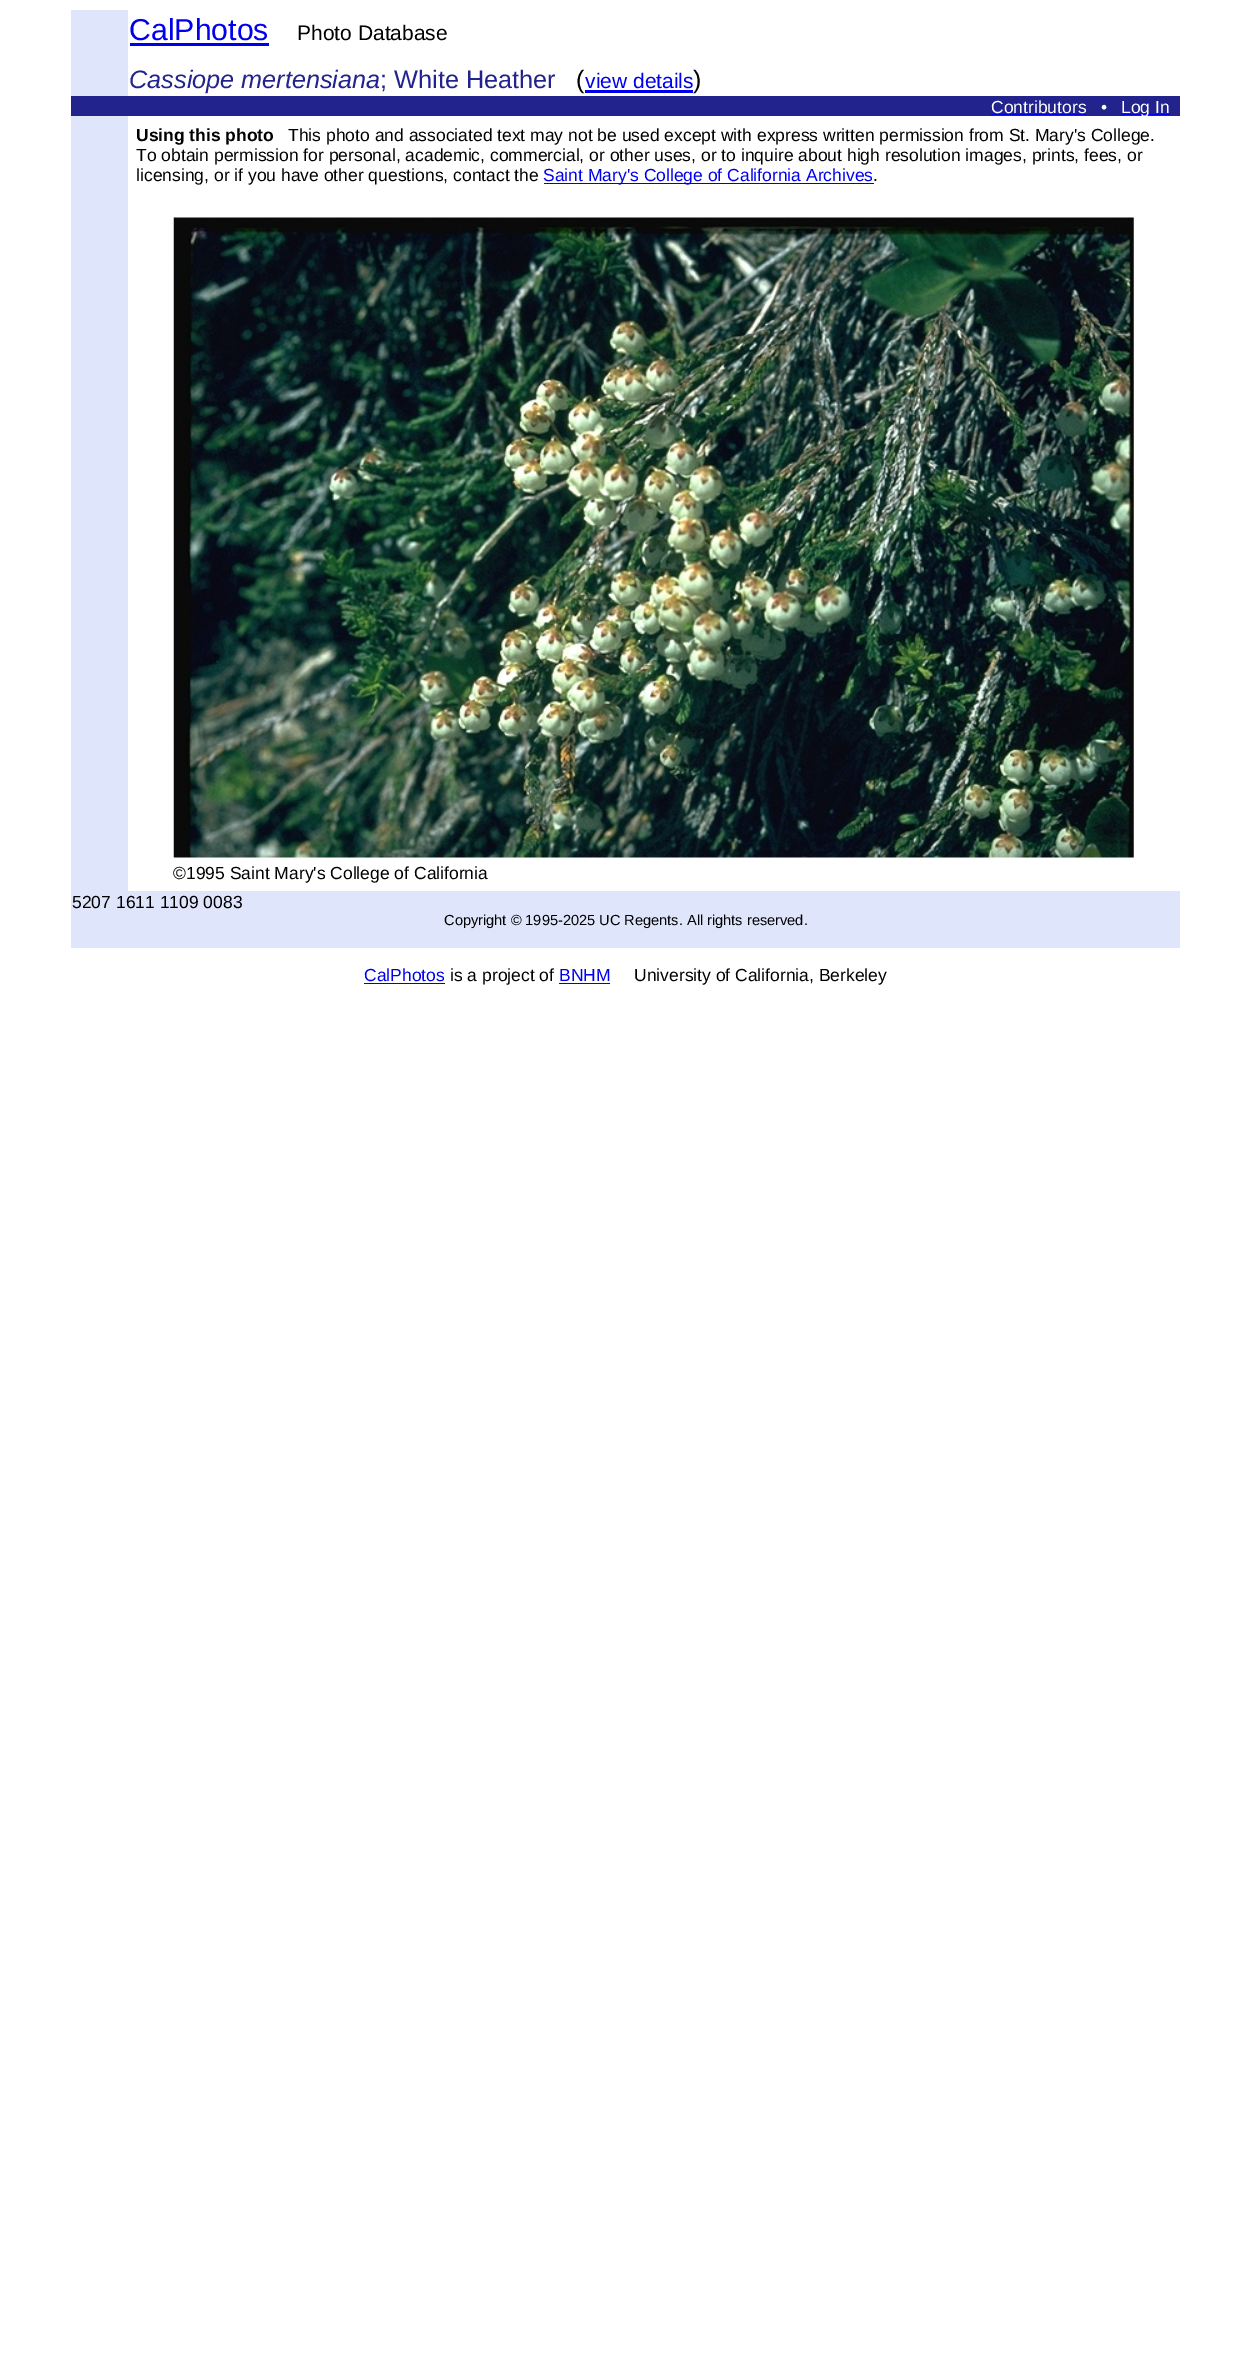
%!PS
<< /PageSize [1251 2379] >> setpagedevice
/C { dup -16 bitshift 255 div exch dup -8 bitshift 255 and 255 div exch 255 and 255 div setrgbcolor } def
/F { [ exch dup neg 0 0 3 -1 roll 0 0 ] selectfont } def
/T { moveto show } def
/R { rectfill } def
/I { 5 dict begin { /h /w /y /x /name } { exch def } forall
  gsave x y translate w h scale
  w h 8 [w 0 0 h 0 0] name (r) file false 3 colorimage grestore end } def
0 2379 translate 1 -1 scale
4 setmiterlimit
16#FFFFFF C
0 0 1251 2379 R
16#DFE5FA C
71 10 57 86 R
/LiberationSans-Regular 30.25 F
16#0000EE C
(CalPhotos) 129 40 T
130 43 139 3 R
/LiberationSans-Regular 21 F
16#000000 C
(Photo Database) 297 40 T
/LiberationSans-Italic 25.25 F
16#23238E C
(Cassiope mertensiana) 129 88 T
/LiberationSans-Regular 25.25 F
(; White Heather) 380 88 T
16#000000 C
(\() 576 88 T
16#0000EE C
585 90 108 3 R
/LiberationSans-Regular 21 F
(view details) 585 88 T
/LiberationSans-Regular 25.25 F
16#000000 C
(\)) 693 88 T
16#23238E C
71 96 1109 20 R
/LiberationSans-Regular 17.5 F
16#FFFFFF C
(Contributors) 991 113 T
16#0000EE C
991 114 95 1 R
16#FFFFFF C
(•) 1101 113 T
16#0000EE C
1121 114 49 1 R
16#FFFFFF C
(Log In) 1121 113 T
16#DFE5FA C
71 116 57 775 R
/LiberationSans-Bold 17.5 F
16#000000 C
(Using this photo) 136 141 T
/LiberationSans-Regular 17.5 F
(This photo and associated text may not be used except with express written permission from St. Mary's College.) 288 141 T
(To obtain permission for personal, academic, commercial, or other uses, or to inquire about high resolution images, prints, fees, or) 136 161 T
(licensing, or if you have other questions, contact the) 136 181 T
16#0000EE C
544 183 330 1 R
(Saint Mary's College of California Archives) 543 181 T
16#000000 C
(.) 873 181 T
(1.rgb) 173 217 961 641 I
(©1995 Saint Mary's College of California) 173 879 T
16#DFE5FA C
71 891 1109 57 R
16#000000 C
(5207 1611 1109 0083) 72 908 T
/LiberationSans-Regular 14.6 F
(Copyright © 1995-2025 UC Regents. All rights reserved.) 444 925 T
/LiberationSans-Regular 17.5 F
16#0000EE C
(CalPhotos) 364 981 T
364 983 81 1 R
16#000000 C
(is a project of) 450 981 T
16#0000EE C
(BNHM) 559 981 T
559 983 51 1 R
16#000000 C
(University of California, Berkeley) 634 981 T
showpage
